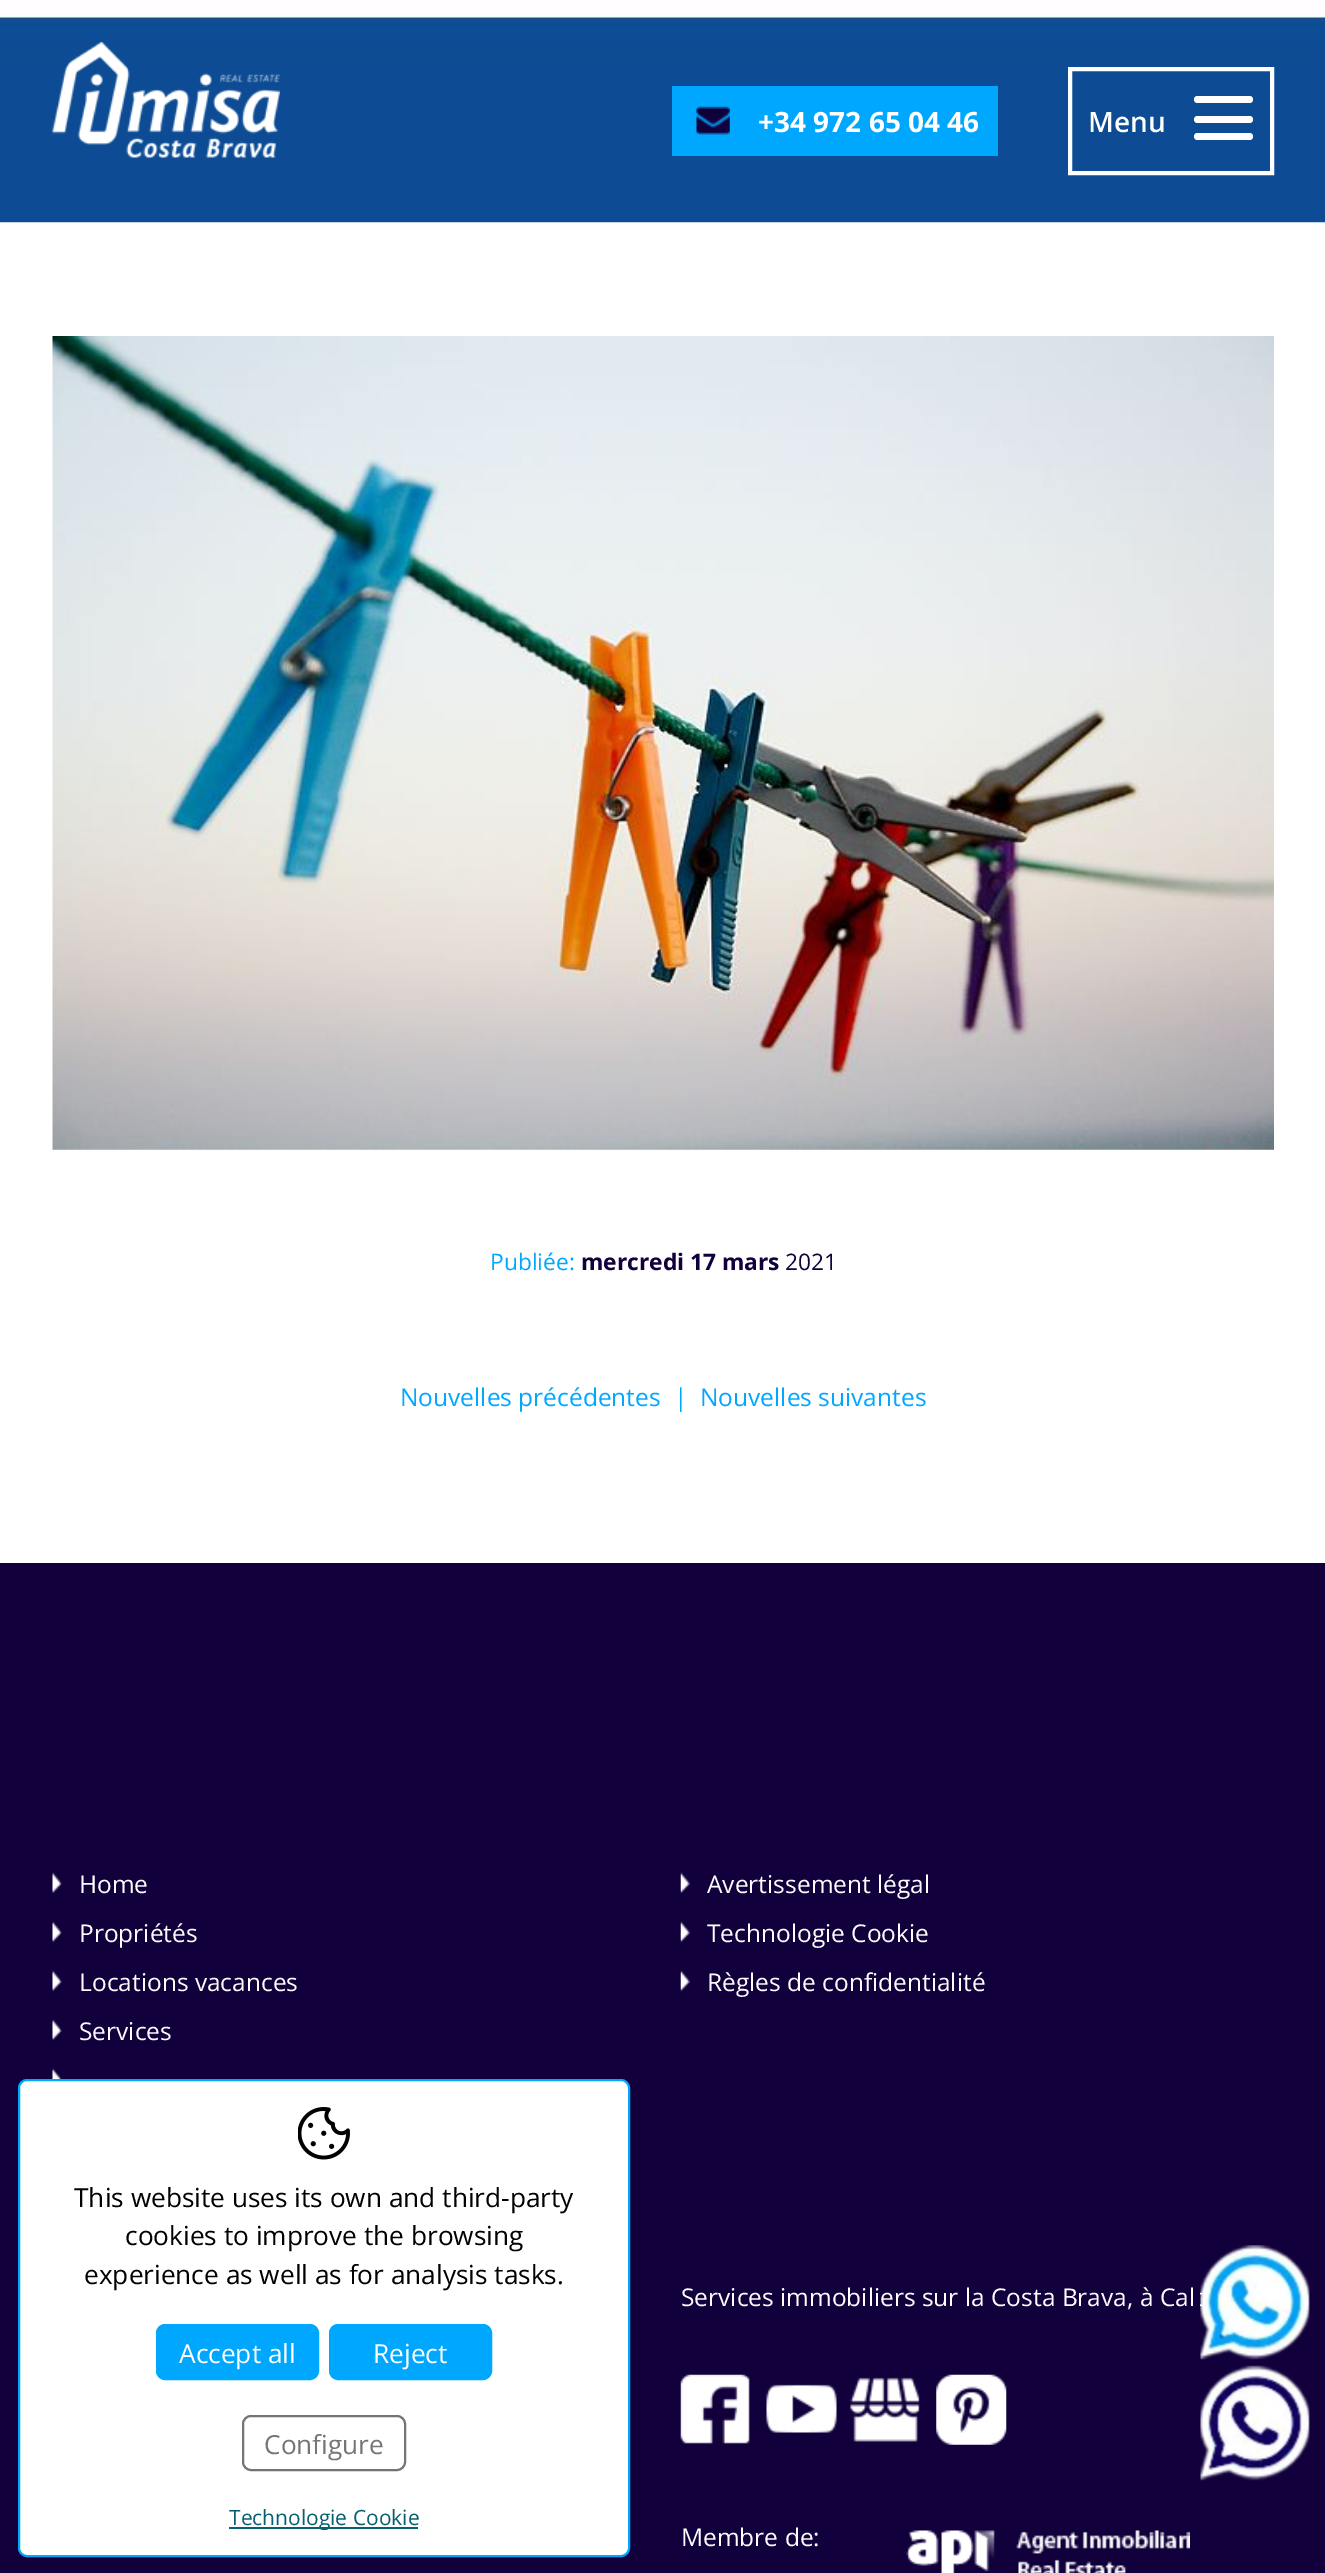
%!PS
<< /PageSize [1325 2573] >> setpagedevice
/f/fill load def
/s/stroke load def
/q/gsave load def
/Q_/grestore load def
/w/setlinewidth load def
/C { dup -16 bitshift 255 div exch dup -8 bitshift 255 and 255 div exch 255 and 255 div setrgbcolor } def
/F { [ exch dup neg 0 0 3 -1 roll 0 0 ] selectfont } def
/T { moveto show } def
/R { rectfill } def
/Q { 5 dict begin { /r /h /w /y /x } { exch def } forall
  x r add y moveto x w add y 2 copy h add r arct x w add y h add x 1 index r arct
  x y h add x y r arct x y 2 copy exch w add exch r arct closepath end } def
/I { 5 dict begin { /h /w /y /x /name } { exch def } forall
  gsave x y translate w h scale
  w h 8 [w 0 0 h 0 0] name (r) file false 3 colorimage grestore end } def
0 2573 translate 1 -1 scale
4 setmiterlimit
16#FFFFFF C
0 0 1325 2573 R
(1.rgb) 0 0 1325 223 I
(2.rgb) 52 42 228 116 I
16#00A7FF C
672 86 326 70 R
(3.rgb) 696 106 34 29 I
/OpenSans-Bold 28 F
16#FFFFFF C
(+34 972 65 04 46) 758 132 T
4 w
1070 69 202 104 rectstroke
/OpenSans-SemiBold 28 F
(Menu) 1088 132 T
1194 96 59 7 3.5 Q f
1194 116 59 7 3.5 Q f
1194 133 59 7 3.5 Q f
(4.rgb) 52 336 1222 814 I
/OpenSans-Regular 22.75 F
16#00A7FF C
(Publiée:) 490 1270 T
/OpenSans-Bold 22.75 F
16#11003B C
(mercredi 17 mars) 581 1270 T
/OpenSans-Regular 22.75 F
(2021) 785 1270 T
/OpenSans-Regular 24.5 F
16#00A7FF C
(Nouvelles précédentes) 400 1406 T
(|) 674 1406 T
(Nouvelles suivantes) 700 1406 T
16#11003B C
0 1563 1325 1010 R
(5.rgb) 52 1872 10 22 I
16#FFFFFF C
(Home) 79 1893 T
(5.rgb) 52 1921 10 22 I
(Propriétés) 79 1942 T
(5.rgb) 52 1970 10 22 I
(Locations vacances) 79 1991 T
(5.rgb) 52 2019 10 22 I
(Services) 79 2040 T
(6.rgb) 52 2068 10 11 I
(7.rgb) 680 1872 10 22 I
(Avertissement légal) 707 1893 T
(7.rgb) 680 1921 10 22 I
(Technologie Cookie) 707 1942 T
(7.rgb) 680 1970 10 22 I
(Règles de confidentialité) 707 1991 T
(Services immobiliers sur la Costa Brava, à Cal) 681 2306 T
(8.rgb) 680 2374 70 70 I
(9.rgb) 766 2384 71 49 I
(10.rgb) 850 2377 70 65 I
(11.rgb) 936 2374 71 71 I
(Membre de:) 681 2546 T
(12.rgb) 906 2530 284 43 I
19 2080 610 476 8 Q q f Q_
16#00A7FF C
2 w
s
(13.rgb) 298 2107 52 53 I
/OpenSans-Regular 26.25 F
16#000000 C
(This website uses its own and third-party) 74 2207 T
(cookies to improve the browsing) 125 2245 T
(experience as well as for analysis tasks.) 84 2284 T
16#00A7FF C
157 2325 161 54 8 Q q f Q_
s
16#FFFFFF C
(Accept all) 179 2363 T
16#00A7FF C
330 2325 161 54 8 Q q f Q_
s
16#FFFFFF C
(Reject) 373 2363 T
16#757575 C
243 2416 162 54 8 Q s
(Configure) 264 2454 T
16#075F72 C
229 2527 189 2 R
/OpenSans-Regular 21 F
(Technologie Cookie) 229 2525 T
(14.rgb) 1200 2245 110 115 I
(15.rgb) 1200 2365 110 116 I
showpage
